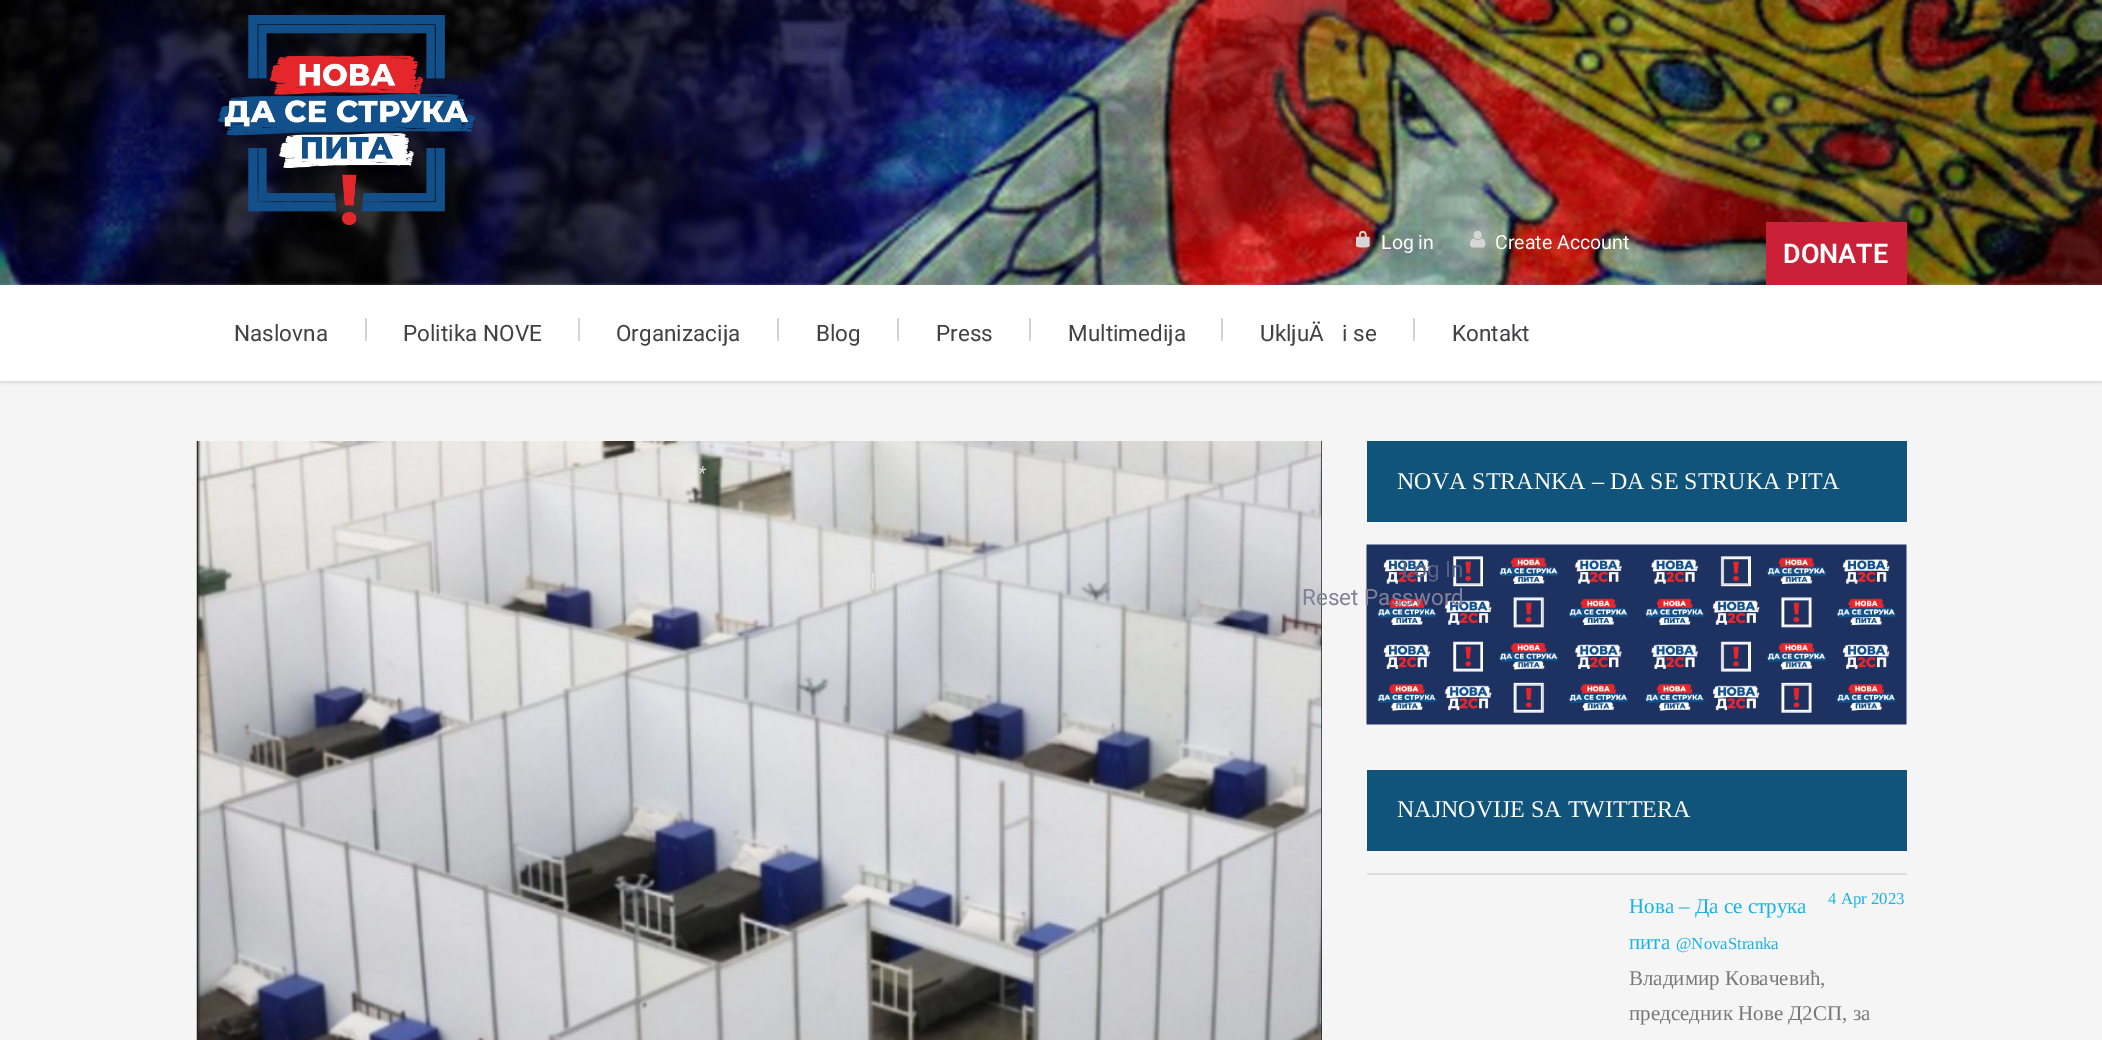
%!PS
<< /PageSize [2102 1040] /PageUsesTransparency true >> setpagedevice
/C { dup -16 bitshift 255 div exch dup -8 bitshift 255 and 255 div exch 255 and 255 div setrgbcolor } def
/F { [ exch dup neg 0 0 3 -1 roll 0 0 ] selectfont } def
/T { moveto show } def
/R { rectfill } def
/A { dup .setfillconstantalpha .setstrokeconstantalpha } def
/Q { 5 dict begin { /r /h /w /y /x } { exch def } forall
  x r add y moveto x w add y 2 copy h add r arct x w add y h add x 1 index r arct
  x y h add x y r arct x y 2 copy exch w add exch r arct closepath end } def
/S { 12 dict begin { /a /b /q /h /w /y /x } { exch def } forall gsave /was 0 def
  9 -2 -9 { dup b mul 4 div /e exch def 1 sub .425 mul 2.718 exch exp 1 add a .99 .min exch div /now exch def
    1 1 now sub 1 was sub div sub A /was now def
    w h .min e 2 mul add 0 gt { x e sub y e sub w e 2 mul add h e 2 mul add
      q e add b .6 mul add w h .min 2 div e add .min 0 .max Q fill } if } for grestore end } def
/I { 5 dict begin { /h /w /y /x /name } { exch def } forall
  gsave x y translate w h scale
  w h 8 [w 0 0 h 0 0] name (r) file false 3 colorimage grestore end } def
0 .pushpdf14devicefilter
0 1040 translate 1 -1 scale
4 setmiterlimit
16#F5F5F5 C
0 0 2102 1040 R
(1.rgb) 0 0 2102 285 I
(2.rgb) 217 15 259 210 I
(3.rgb) 1356 230 14 18 I
/Roboto-Regular 19.5 F
16#FFFFFF C
(Log in) 1381 249 T
(4.rgb) 1470 230 16 18 I
(Create Account) 1495 249 T
16#D8D8D8 C
0 287 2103 96 0 2 1 S
16#CA2139 C
1766 222 141 63 R
/Roboto-SemiBold 27 F
16#FFFFFF C
(DONATE) 1783 263 T
0 285 2102 96 R
/Roboto-Regular 22.5 F
16#424246 C
(Naslovna) 234 341 T
16#D5D5D6 C
365 318 2 23 R
16#424246 C
(Politika NOVE) 403 341 T
16#D5D5D6 C
578 318 2 23 R
16#424246 C
(Organizacija) 616 341 T
16#D5D5D6 C
777 318 2 23 R
16#424246 C
(Blog) 816 341 T
16#D5D5D6 C
897 318 2 23 R
16#424246 C
(Press) 936 341 T
16#D5D5D6 C
1029 318 2 23 R
16#424246 C
(Multimedija) 1068 341 T
16#D5D5D6 C
1221 318 2 23 R
16#424246 C
(UkljuÄ) 1260 341 T
(i se) 1342 341 T
16#D5D5D6 C
1413 318 2 23 R
16#424246 C
(Kontakt) 1452 341 T
16#272729 C
1321 441 1 599 R
(5.rgb) 196 441 1126 599 I
/Roboto-Italic 18 F
16#DBDBD9 C
(*) 698 479 T
(6.rgb) 1366 544 541 181 I
/Roboto-Regular 22.5 F
16#556186 C
(Log In) 1402 577 T
16#11547B C
1367 441 540 81 R
/LiberationSerif-Regular 24 F
16#FFFFFF C
(NOVA STRANKA – DA SE STRUKA PITA) 1397 489 T
16#11547B C
1367 770 540 81 R
16#FFFFFF C
(NAJNOVIJE SA TWITTERA) 1397 817 T
16#DDDDDD C
1367 873 540 2 R
/LiberationSerif-Regular 21 F
16#14B3E4 C
(Нова – Да се струка) 1629 913 T
/LiberationSerif-Regular 16.75 F
(4 Apr 2023) 1828 904 T
/LiberationSerif-Regular 21 F
(пита) 1629 949 T
/LiberationSerif-Regular 16.75 F
(@NovaStranka) 1676 949 T
/LiberationSerif-Regular 21 F
16#777777 C
(Владимир Ковачевић,) 1629 985 T
(председник Нове Д2СП, за) 1629 1020 T
/Roboto-Regular 22.5 F
16#E0E0E0 C
(I) 870 589 T
16#848099 C
(Reset Password) 1302 605 T
.poppdf14devicefilter showpage
